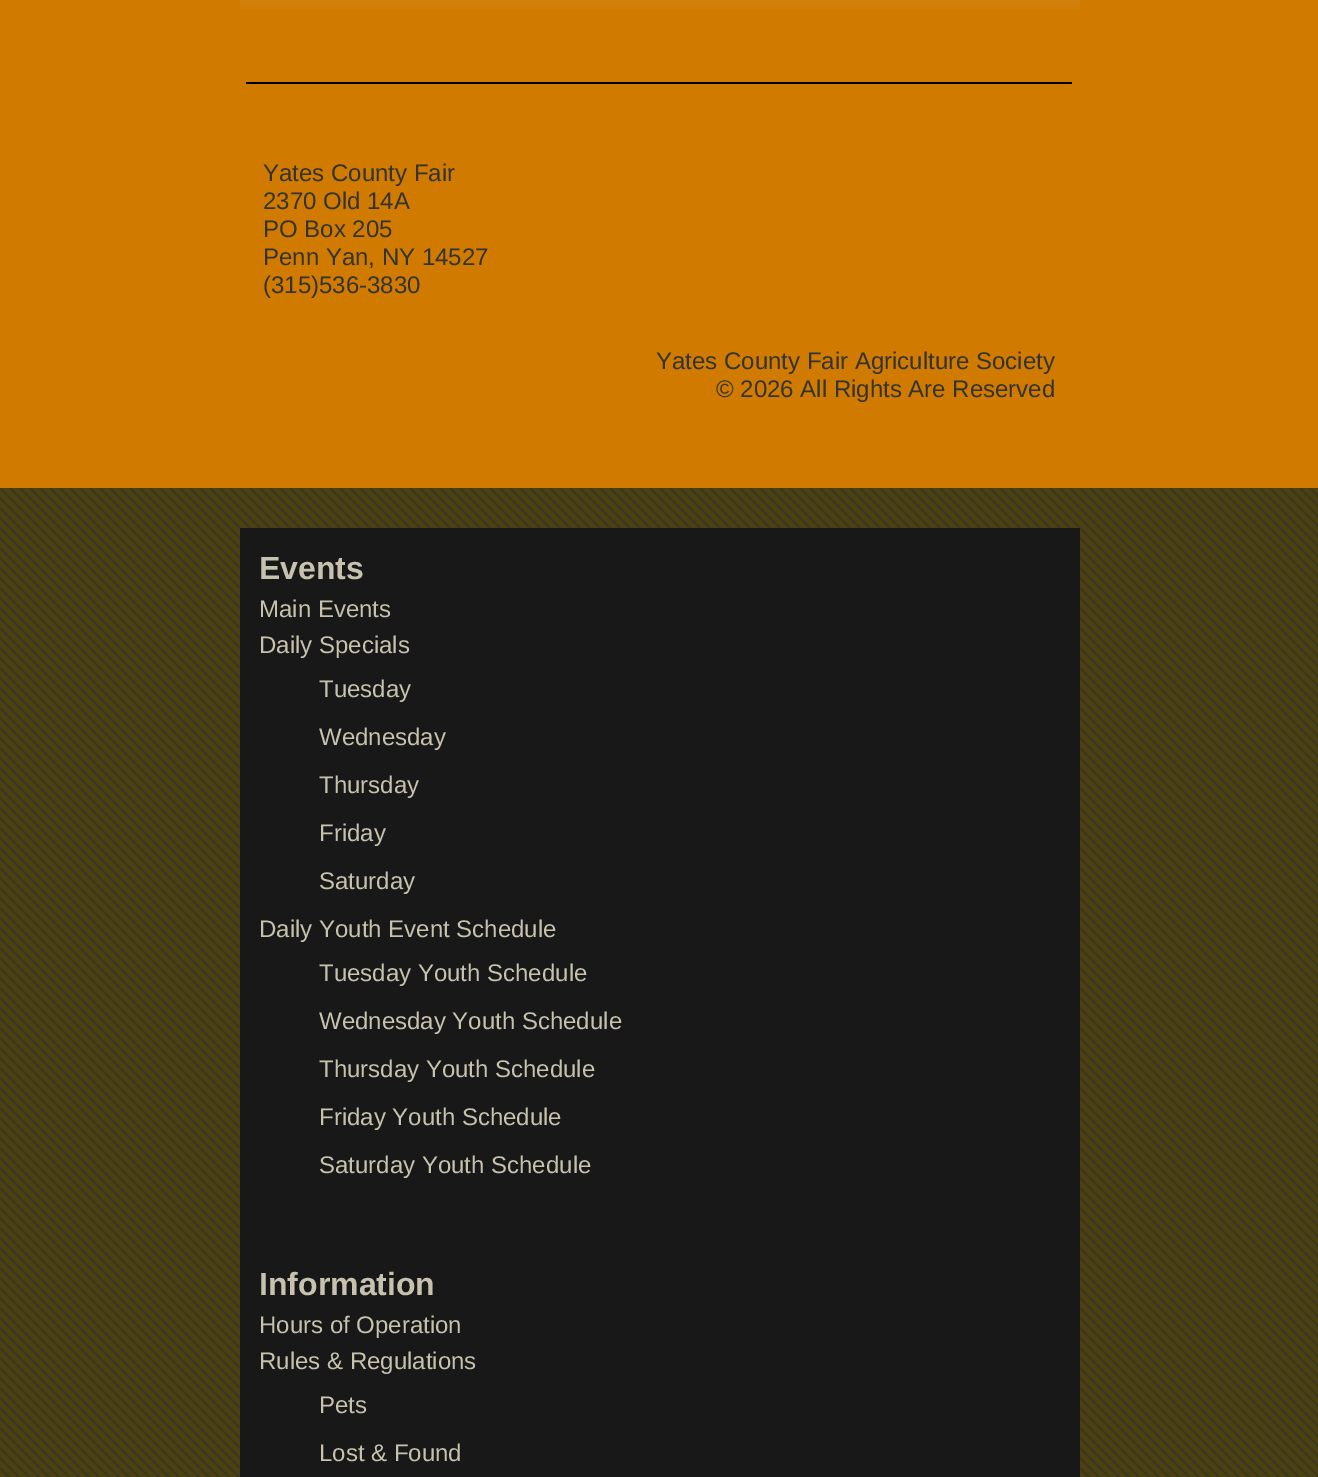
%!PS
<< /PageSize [1318 1477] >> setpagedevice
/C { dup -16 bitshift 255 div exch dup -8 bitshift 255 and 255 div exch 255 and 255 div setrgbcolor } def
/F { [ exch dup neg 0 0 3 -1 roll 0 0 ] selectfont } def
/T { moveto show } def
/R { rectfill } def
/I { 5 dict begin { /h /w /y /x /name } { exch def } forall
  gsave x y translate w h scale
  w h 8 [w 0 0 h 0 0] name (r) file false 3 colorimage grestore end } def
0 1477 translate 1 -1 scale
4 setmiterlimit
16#D07B00 C
0 0 1318 1477 R
(1.rgb) 240 0 840 9 I
16#000000 C
246 82 826 2 R
/LiberationSans-Regular 24 F
16#333333 C
(Yates County Fair) 263 181 T
(2370 Old 14A) 263 209 T
(PO Box 205) 263 237 T
(Penn Yan, NY 14527) 263 265 T
(\(315\)536-3830) 263 293 T
(Yates County Fair Agriculture Society) 656 369 T
(© 2026 All Rights Are Reserved) 716 397 T
(2.rgb) 0 488 1318 989 I
16#181818 C
240 528 840 949 R
/LiberationSans-Bold 32 F
16#C7C2AE C
(Events) 259 579 T
/LiberationSans-Regular 24 F
(Main Events) 259 617 T
(Daily Specials) 259 653 T
(Tuesday) 319 697 T
(Wednesday) 319 745 T
(Thursday) 319 793 T
(Friday) 319 841 T
(Saturday) 319 889 T
(Daily Youth Event Schedule) 259 937 T
(Tuesday Youth Schedule) 319 981 T
(Wednesday Youth Schedule) 319 1029 T
(Thursday Youth Schedule) 319 1077 T
(Friday Youth Schedule) 319 1125 T
(Saturday Youth Schedule) 319 1173 T
/LiberationSans-Bold 32 F
(Information) 259 1295 T
/LiberationSans-Regular 24 F
(Hours of Operation) 259 1333 T
(Rules & Regulations) 259 1369 T
(Pets) 319 1413 T
(Lost & Found) 319 1461 T
showpage
